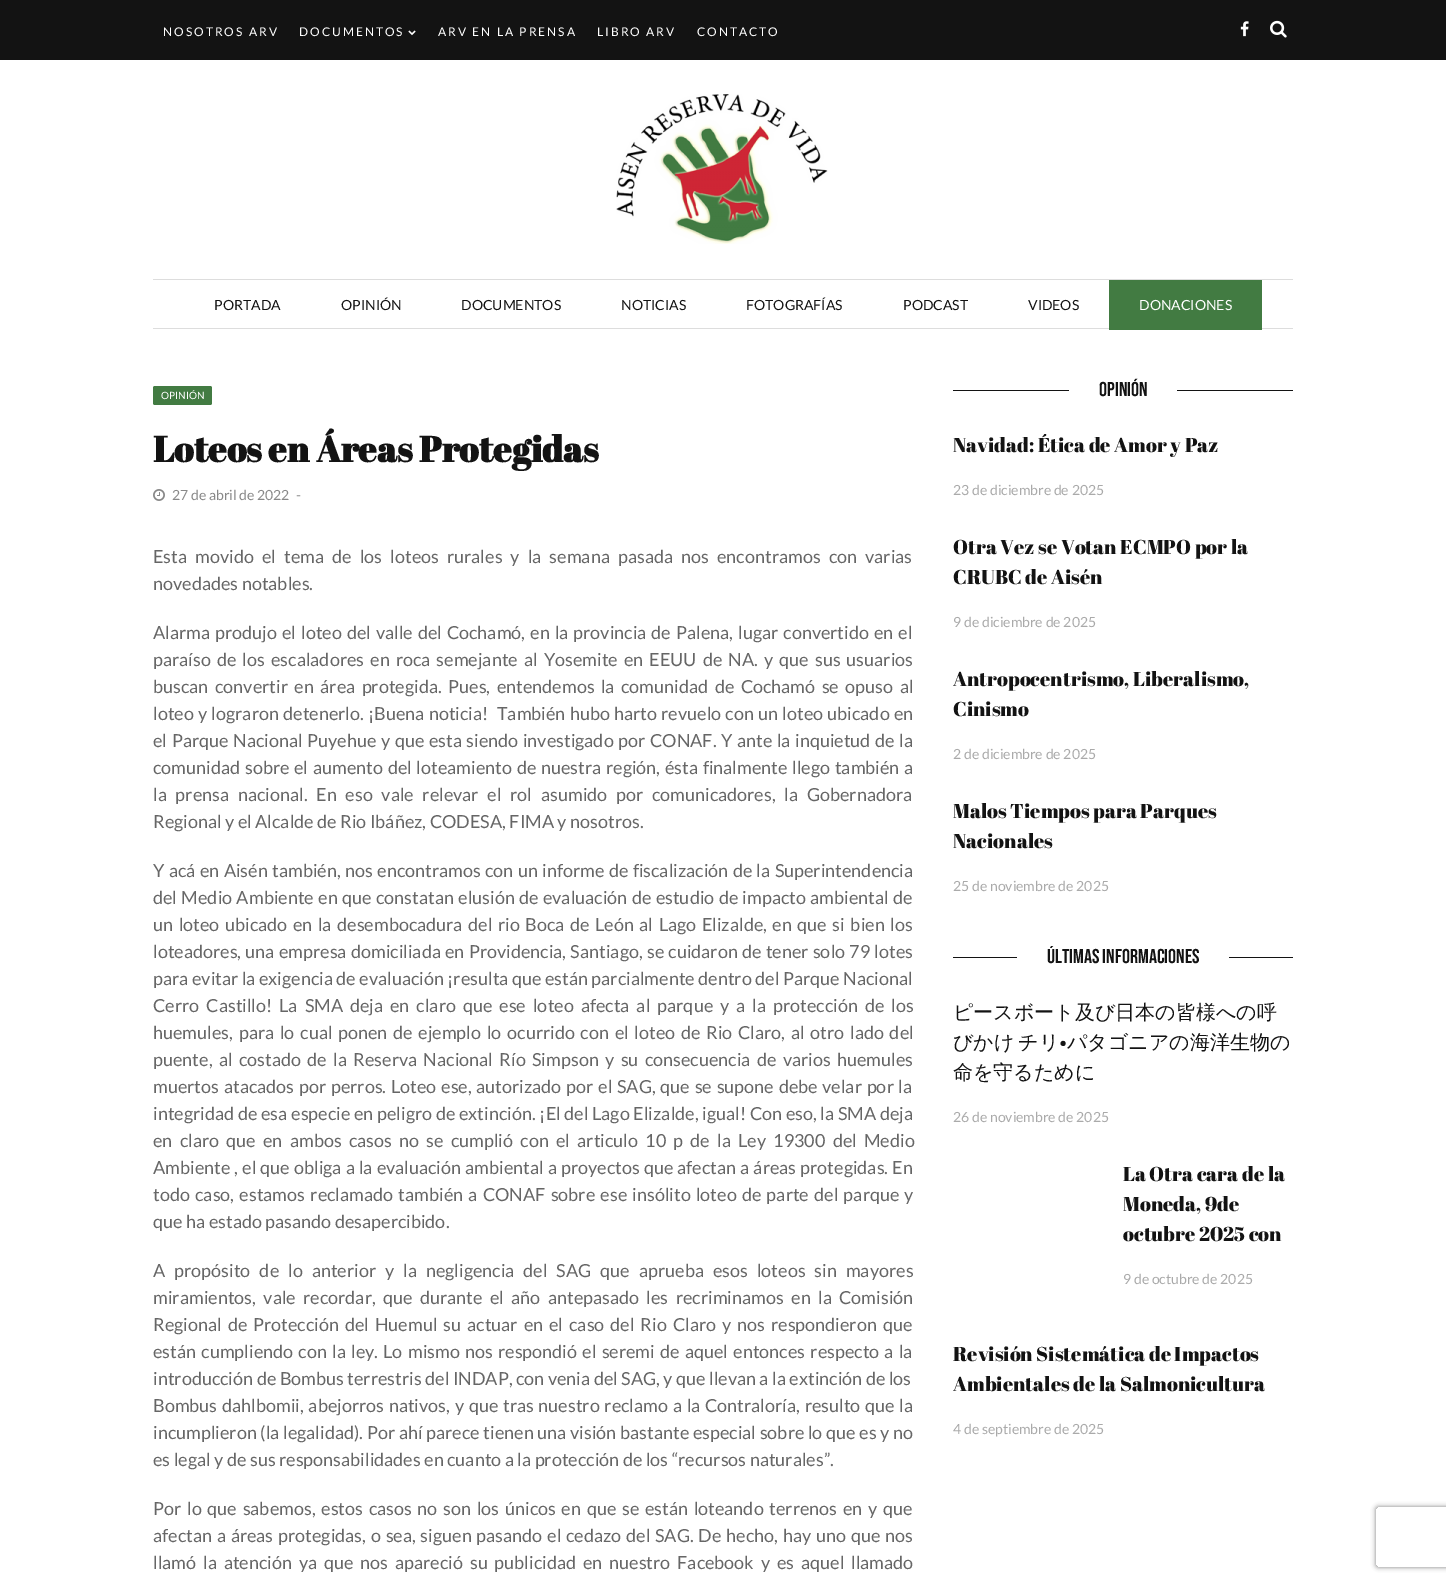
%!PS
<< /PageSize [1446 1581] /PageUsesTransparency true >> setpagedevice
/m/moveto load def
/l/rlineto load def
/c/rcurveto load def
/z/closepath load def
/f/fill load def
/q/gsave load def
/Q_/grestore load def
/C { dup -16 bitshift 255 div exch dup -8 bitshift 255 and 255 div exch 255 and 255 div setrgbcolor } def
/F { [ exch dup neg 0 0 3 -1 roll 0 0 ] selectfont } def
/T { moveto show } def
/R { rectfill } def
/A { dup .setfillconstantalpha .setstrokeconstantalpha } def
/Q { 5 dict begin { /r /h /w /y /x } { exch def } forall
  x r add y moveto x w add y 2 copy h add r arct x w add y h add x 1 index r arct
  x y h add x y r arct x y 2 copy exch w add exch r arct closepath end } def
/S { 12 dict begin { /a /b /q /h /w /y /x } { exch def } forall gsave /was 0 def
  9 -2 -9 { dup b mul 4 div /e exch def 1 sub .425 mul 2.718 exch exp 1 add a .99 .min exch div /now exch def
    1 1 now sub 1 was sub div sub A /was now def
    w h .min e 2 mul add 0 gt { x e sub y e sub w e 2 mul add h e 2 mul add
      q e add b .6 mul add w h .min 2 div e add .min 0 .max Q fill } if } for grestore end } def
/I { 5 dict begin { /h /w /y /x /name } { exch def } forall
  gsave x y translate w h scale
  w h 8 [w 0 0 h 0 0] name (r) file false 3 colorimage grestore end } def
0 .pushpdf14devicefilter
0 1581 translate 1 -1 scale
4 setmiterlimit
16#FFFFFF C
0 0 1446 1581 R
16#131313 C
0 0 1446 60 R
/Lato-Regular 12 F
16#FFFFFF C
163 36 m 2 0 (NOSOTROS ARV) ashow
299 36 m 2 0 (DOCUMENTOS) ashow
(1.rgb) 408 30 8 6 I
438 36 m 2 0 (ARV EN LA PRENSA) ashow
597 36 m 2 0 (LIBRO ARV) ashow
697 36 m 2 0 (CONTACTO) ashow
(2.rgb) 1240 21 9 16 I
(3.rgb) 1270 20 17 18 I
(4.rgb) 616 94 212 150 I
16#DDDDDD C
153 279 1140 1 R
153 328 1140 1 R
/Lato-Regular 14 F
16#131313 C
(PORTADA) 214 310 T
(OPINIÓN) 341 310 T
(DOCUMENTOS) 461 310 T
(NOTICIAS) 621 310 T
(FOTOGRAFÍAS) 746 310 T
(PODCAST) 903 310 T
(VIDEOS) 1028 310 T
16#427B42 C
1109 280 153 50 R
16#FFFFFF C
(DONACIONES) 1139 310 T
16#427B42 C
153 386 59 19 2 Q f
/Lato-Regular 10 F
16#FFFFFF C
(OPINIÓN) 161 399 T
/AbrilFatface-Bold 36 F
16#131313 C
(Loteos en Áreas Protegidas) 153 462 T
(5.rgb) 153 489 12 12 I
/Lato-Regular 14 F
16#888888 C
(27 de abril de 2022) 172 500 T
(-) 296 500 T
/Lato-Regular 18 F
16#666666 C
153 563 m 4.6 0 32 (Esta movido el tema de los loteos rurales y la semana pasada nos encontramos con varias) widthshow
(novedades notables.) 153 590 T
153 639 m 1.5 0 32 (Alarma produjo el loteo del valle del Cochamó, en la provincia de Palena, lugar convertido en el) widthshow
153 666 m 2.6 0 32 (paraíso de los escaladores en roca semejante al Yosemite en EEUU de NA. y que sus usuarios) widthshow
153 693 m 3 0 32 (buscan convertir en área protegida. Pues, entendemos la comunidad de Cochamó se opuso al) widthshow
153 720 m .75 0 32 (loteo y lograron detenerlo. ¡Buena noticia!  También hubo harto revuelo con un loteo ubicado en) widthshow
153 747 m 1.1 0 32 (el Parque Nacional Puyehue y que esta siendo investigado por CONAF. Y ante la inquietud de la) widthshow
153 774 m 1.25 0 32 (comunidad sobre el aumento del loteamiento de nuestra región, ésta finalmente llego también a) widthshow
153 801 m 5.25 0 32 (la prensa nacional. En eso vale relevar el rol asumido por comunicadores, la Gobernadora) widthshow
(Regional y el Alcalde de Rio Ibáñez, CODESA, FIMA y nosotros.) 153 828 T
153 877 m .9 0 32 (Y acá en Aisén también, nos encontramos con un informe de fiscalización de la Superintendencia) widthshow
153 904 m .9 0 32 (del Medio Ambiente en que constatan elusión de evaluación de estudio de impacto ambiental de) widthshow
153 931 m 2.1 0 32 (un loteo ubicado en la desembocadura del rio Boca de León al Lago Elizalde, en que si bien los) widthshow
153 958 m .75 0 32 (loteadores, una empresa domiciliada en Providencia, Santiago, se cuidaron de tener solo 79 lotes) widthshow
(para evitar la exigencia de evaluación ¡resulta que están parcialmente dentro del Parque Nacional) 153 985 T
153 1012 m 3.5 0 32 (Cerro Castillo! La SMA deja en claro que ese loteo afecta al parque y a la protección de los) widthshow
153 1039 m 2.25 0 32 (huemules, para lo cual ponen de ejemplo lo ocurrido con el loteo de Rio Claro, al otro lado del) widthshow
153 1066 m 2.9 0 32 (puente, al costado de la Reserva Nacional Río Simpson y su consecuencia de varios huemules) widthshow
153 1093 m 1.25 0 32 (muertos atacados por perros. Loteo ese, autorizado por el SAG, que se supone debe velar por la) widthshow
153 1120 m .25 0 32 (integridad de esa especie en peligro de extinción. ¡El del Lago Elizalde, igual! Con eso, la SMA deja) widthshow
153 1147 m 3.75 0 32 (en claro que en ambos casos no se cumplió con el articulo 10 p de la Ley 19300 del Medio) widthshow
153 1174 m .6 0 32 (Ambiente , el que obliga a la evaluación ambiental a proyectos que afectan a áreas protegidas. En) widthshow
153 1201 m 1.75 0 32 (todo caso, estamos reclamado también a CONAF sobre ese insólito loteo de parte del parque y) widthshow
(que ha estado pasando desapercibido.) 153 1228 T
153 1277 m 5.5 0 32 (A propósito de lo anterior y la negligencia del SAG que aprueba esos loteos sin mayores) widthshow
153 1304 m 3.9 0 32 (miramientos, vale recordar, que durante el año antepasado les recriminamos en la Comisión) widthshow
153 1331 m 2.5 0 32 (Regional de Protección del Huemul su actuar en el caso del Rio Claro y nos respondieron que) widthshow
153 1358 m 1.75 0 32 (están cumpliendo con la ley. Lo mismo nos respondió el seremi de aquel entonces respecto a la) widthshow
(introducción de Bombus terrestris del INDAP, con venia del SAG, y que llevan a la extinción de los) 153 1385 T
153 1412 m 1.25 0 32 (Bombus dahlbomii, abejorros nativos, y que tras nuestro reclamo a la Contraloría, resulto que la) widthshow
153 1439 m .2 0 32 (incumplieron \(la legalidad\). Por ahí parece tienen una visión bastante especial sobre lo que es y no) widthshow
(es legal y de sus responsabilidades en cuanto a la protección de los “recursos naturales”.) 153 1466 T
153 1515 m 2.25 0 32 (Por lo que sabemos, estos casos no son los únicos en que se están loteando terrenos en y que) widthshow
153 1542 m 1.3 0 32 (afectan a áreas protegidas, o sea, siguen pasando el cedazo del SAG. De hecho, hay uno que nos) widthshow
153 1569 m 3.4 0 32 (llamó la atención ya que nos apareció su publicidad en nuestro Facebook y es aquel llamado) widthshow
16#131313 C
953 390 340 1 R
16#FFFFFF C
1069 390 108 1 R
/BebasNeue-Regular 20 F
16#131313 C
(OPINIÓN) 1099 396 T
/AbrilFatface-Regular 20 F
(Navidad: Ética de Amor y Paz) 953 452 T
/Lato-Regular 14 F
16#AAAAAA C
(23 de diciembre de 2025) 953 495 T
/AbrilFatface-Regular 20 F
16#131313 C
(Otra Vez se Votan ECMPO por la) 953 554 T
(CRUBC de Aisén) 953 584 T
/Lato-Regular 14 F
16#AAAAAA C
(9 de diciembre de 2025) 953 627 T
/AbrilFatface-Regular 20 F
16#131313 C
(Antropocentrismo, Liberalismo,) 953 686 T
(Cinismo) 953 716 T
/Lato-Regular 14 F
16#AAAAAA C
(2 de diciembre de 2025) 953 759 T
/AbrilFatface-Regular 20 F
16#131313 C
(Malos Tiempos para Parques) 953 818 T
(Nacionales) 953 848 T
/Lato-Regular 14 F
16#AAAAAA C
(25 de noviembre de 2025) 953 891 T
16#131313 C
953 957 340 1 R
16#FFFFFF C
1017 957 212 1 R
q
953 946 340 495 rectclip
/BebasNeue-Regular 20 F
16#131313 C
(ÚLTIMAS INFORMACIONES) 1047 963 T
Q_
/WenQuanYiZenHei-Medium 20 F
16#131313 C
(ピースボート及び日本の皆様への呼) 953 1019 T
953 1049 m -2 0 32 (びかけ チリ) widthshow
/AbrilFatface-Regular 20 F
(•) 1059 1049 T
/WenQuanYiZenHei-Medium 20 F
(パタゴニアの海洋生物の) 1067 1049 T
(命を守るために) 953 1079 T
/Lato-Regular 14 F
16#AAAAAA C
(26 de noviembre de 2025) 953 1122 T
/AbrilFatface-Regular 20 F
16#131313 C
(La Otra cara de la) 1123 1181 T
(Moneda, 9de) 1123 1211 T
(octubre 2025 con) 1123 1241 T
/Lato-Regular 14 F
16#AAAAAA C
(9 de octubre de 2025) 1123 1284 T
/AbrilFatface-Regular 20 F
16#131313 C
(Revisión Sistemática de Impactos) 953 1361 T
(Ambientales de la Salmonicultura) 953 1391 T
/Lato-Regular 14 F
16#AAAAAA C
(4 de septiembre de 2025) 953 1434 T
q
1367 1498 m 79 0 l 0 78 l -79 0 l z 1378 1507 m 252 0 l 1 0 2 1 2 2 c 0 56 l 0 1 -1 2 -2 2 c -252 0 l -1 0 -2 -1 -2 -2 c 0 -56 l 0 -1 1 -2 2 -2 c z eoclip newpath
16#808080 C
1376 1507 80 60 2 2.5 1 S
Q_
.poppdf14devicefilter showpage
